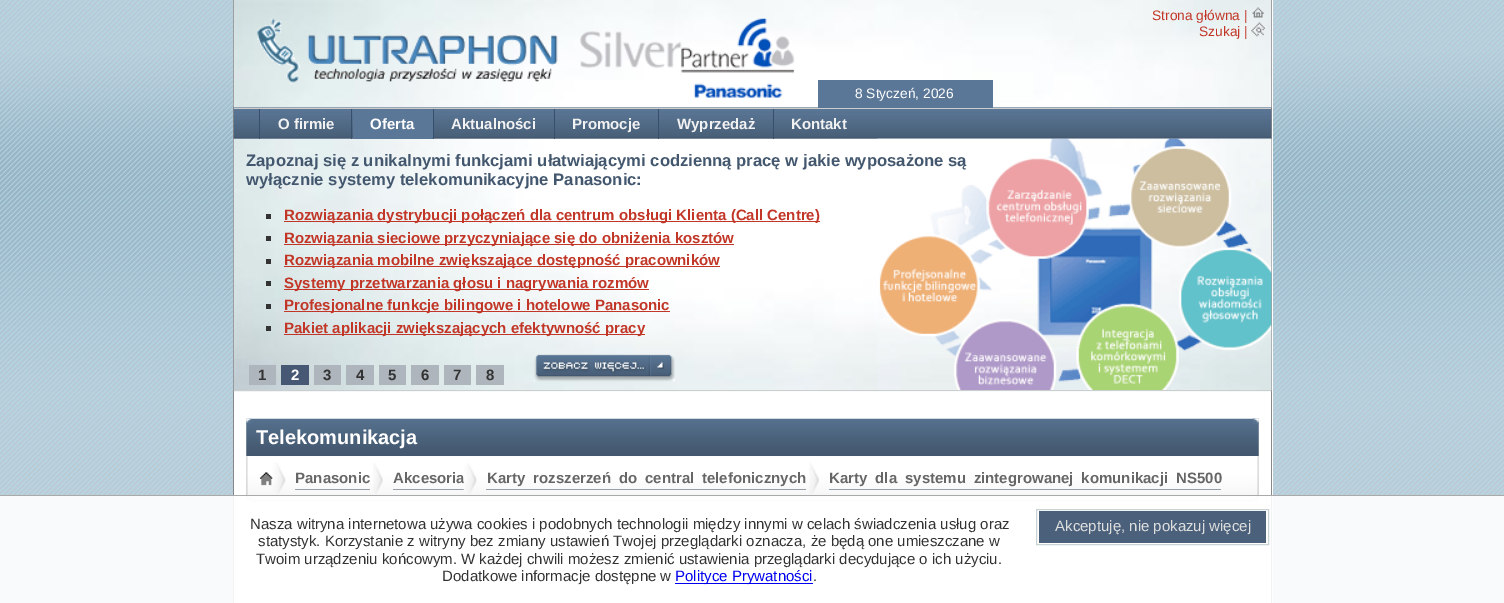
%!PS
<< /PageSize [1504 603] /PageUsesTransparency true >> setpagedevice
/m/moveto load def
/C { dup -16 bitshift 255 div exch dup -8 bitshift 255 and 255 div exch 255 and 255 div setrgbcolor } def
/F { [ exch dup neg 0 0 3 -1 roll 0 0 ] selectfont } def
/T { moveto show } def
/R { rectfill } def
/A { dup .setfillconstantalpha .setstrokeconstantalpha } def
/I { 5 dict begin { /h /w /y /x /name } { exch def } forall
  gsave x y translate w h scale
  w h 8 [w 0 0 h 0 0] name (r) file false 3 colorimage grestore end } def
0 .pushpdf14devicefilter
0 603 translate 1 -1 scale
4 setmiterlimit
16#FFFFFF C
0 0 1504 603 R
(1.rgb) 0 0 1504 603 I
(2.rgb) 0 0 1504 603 I
234 0 1039 603 R
16#898788 C
1271 0 1 603 R
233 0 1 603 R
(3.rgb) 233 0 1039 108 I
(4.rgb) 257 18 301 66 I
(5.rgb) 580 18 215 80 I
(8.rgb) 233 107 1039 32 I
16#5B7797 C
818 80 175 28 R
/LiberationSans-Regular 13.75 F
16#FFFFFF C
(8 Styczeń, 2026) 855 98 T
16#C13626 C
(Strona główna |) 1152 20 T
(6.rgb) 1252 7 12 11 I
(Szukaj |) 1199 36 T
(7.rgb) 1251 22 14 15 I
16#CDCCCC C
234 108 1037 1 R
(9.rgb) 233 138 1039 254 I
16#364F6A C
259 109 1 30 R
/LiberationSans-Bold 15 F
16#F2F2F2 C
(O firmie) 278 129 T
16#364F6A C
351 109 1 30 R
16#5B7797 C
353 110 80 29 R
16#FFFFFF C
(Oferta) 370 129 T
16#364F6A C
433 109 1 30 R
16#F2F2F2 C
(Aktualności) 451 129 T
16#364F6A C
554 109 1 30 R
16#F2F2F2 C
(Promocje) 572 129 T
16#364F6A C
658 109 1 30 R
16#F2F2F2 C
(Wyprzedaż) 677 129 T
16#364F6A C
773 109 1 30 R
16#F2F2F2 C
(Kontakt) 791 129 T
16#CACECF C
234 390 1037 1 R
(11.rgb) 877 138 395 252 I
/LiberationSans-Bold 16.65 F
16#43576E C
(Zapoznaj się z unikalnymi funkcjami ułatwiającymi codzienną pracę w jakie wyposażone są) 246 166 T
(wyłącznie systemy telekomunikacyjne Panasonic:) 246 185 T
16#333333 C
266 214 5 5 R
16#C13626 C
284 221 536 1 R
/LiberationSans-Bold 15 F
(Rozwiązania dystrybucji połączeń dla centrum obsługi Klienta \(Call Centre\)) 284 220 T
16#333333 C
266 236 5 5 R
16#C13626 C
284 244 450 1 R
(Rozwiązania sieciowe przyczyniające się do obniżenia kosztów) 284 243 T
16#333333 C
266 259 5 5 R
16#C13626 C
284 266 436 1 R
(Rozwiązania mobilne zwiększające dostępność pracowników) 284 265 T
16#333333 C
266 281 5 5 R
16#C13626 C
284 289 365 1 R
(Systemy przetwarzania głosu i nagrywania rozmów) 284 288 T
16#333333 C
266 304 5 5 R
16#C13626 C
284 311 386 1 R
(Profesjonalne funkcje bilingowe i hotelowe Panasonic) 284 310 T
16#333333 C
266 326 5 5 R
16#C13626 C
284 334 361 1 R
(Pakiet aplikacji zwiększających efektywność pracy) 284 333 T
(10.rgb) 533 354 142 28 I
16#AEB5BC C
249 365 27 20 R
16#333333 C
(1) 258 380 T
16#475875 C
281 365 28 20 R
16#FFFFFF C
(2) 291 380 T
16#AEB5BC C
314 365 27 20 R
16#333333 C
(3) 323 380 T
16#AEB5BC C
346 365 28 20 R
16#333333 C
(4) 356 380 T
16#AEB5BC C
379 365 27 20 R
16#333333 C
(5) 388 380 T
16#AEB5BC C
411 365 28 20 R
16#333333 C
(6) 421 380 T
16#AEB5BC C
444 365 27 20 R
16#333333 C
(7) 453 380 T
16#AEB5BC C
476 365 28 20 R
16#333333 C
(8) 486 380 T
(12.rgb) 246 418 1013 39 I
(13.rgb) 246 418 6 6 I
(14.rgb) 1252 418 7 6 I
/LiberationSans-Bold 20 F
16#FFFFFF C
(Telekomunikacja) 256 444 T
(15.rgb) 246 456 1013 46 I
(16.rgb) 246 456 8 46 I
(17.rgb) 259 472 14 14 I
(18.rgb) 272 462 14 32 I
16#95A0AA C
295 489 75 1 R
/LiberationSans-Bold 15 F
16#666666 C
(Panasonic) 295 483 T
(19.rgb) 373 462 10 32 I
16#95A0AA C
393 489 71 1 R
16#666666 C
(Akcesoria) 393 483 T
(20.rgb) 463 463 14 31 I
16#95A0AA C
486 489 320 1 R
16#666666 C
487 483 m 3.75 0 32 (Karty rozszerzeń do central telefonicznych) widthshow
(21.rgb) 809 462 10 32 I
16#95A0AA C
829 489 392 1 R
16#666666 C
829 483 m 3.75 0 32 (Karty dla systemu zintegrowanej komunikacji NS500) widthshow
(22.rgb) 1251 456 8 46 I
0.9 A
16#FFFFFF C
0 496 1504 107 R
1 A
16#AAAAAA C
0 495 1504 1 R
/LiberationSans-Regular 15 F
16#333333 C
(Nasza witryna internetowa używa cookies i podobnych technologii między innymi w celach świadczenia usług oraz) 250 529 T
(statystyk. Korzystanie z witryny bez zmiany ustawień Twojej przeglądarki oznacza, że będą one umieszczane w) 258 546 T
(Twoim urządzeniu końcowym. W każdej chwili możesz zmienić ustawienia przeglądarki decydujące o ich użyciu.) 256 564 T
(Dodatkowe informacje dostępne w) 442 581 T
16#0000EE C
675 583 138 1 R
(Polityce Prywatności) 675 581 T
16#333333 C
(.) 813 581 T
16#CAD3D4 C
1036.5 509.5 232 35 rectstroke
16#4B617B C
1039 511 227 32 R
16#DFDFDF C
(Akceptuję, nie pokazuj więcej) 1055 531 T
.poppdf14devicefilter showpage
